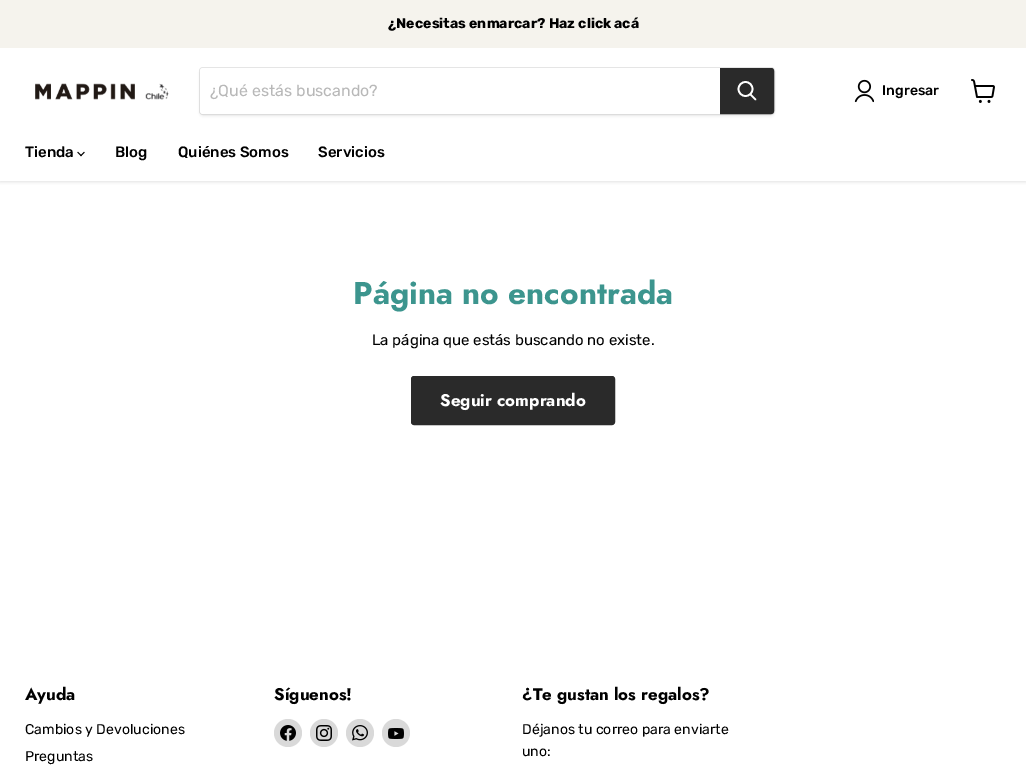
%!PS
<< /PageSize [1026 768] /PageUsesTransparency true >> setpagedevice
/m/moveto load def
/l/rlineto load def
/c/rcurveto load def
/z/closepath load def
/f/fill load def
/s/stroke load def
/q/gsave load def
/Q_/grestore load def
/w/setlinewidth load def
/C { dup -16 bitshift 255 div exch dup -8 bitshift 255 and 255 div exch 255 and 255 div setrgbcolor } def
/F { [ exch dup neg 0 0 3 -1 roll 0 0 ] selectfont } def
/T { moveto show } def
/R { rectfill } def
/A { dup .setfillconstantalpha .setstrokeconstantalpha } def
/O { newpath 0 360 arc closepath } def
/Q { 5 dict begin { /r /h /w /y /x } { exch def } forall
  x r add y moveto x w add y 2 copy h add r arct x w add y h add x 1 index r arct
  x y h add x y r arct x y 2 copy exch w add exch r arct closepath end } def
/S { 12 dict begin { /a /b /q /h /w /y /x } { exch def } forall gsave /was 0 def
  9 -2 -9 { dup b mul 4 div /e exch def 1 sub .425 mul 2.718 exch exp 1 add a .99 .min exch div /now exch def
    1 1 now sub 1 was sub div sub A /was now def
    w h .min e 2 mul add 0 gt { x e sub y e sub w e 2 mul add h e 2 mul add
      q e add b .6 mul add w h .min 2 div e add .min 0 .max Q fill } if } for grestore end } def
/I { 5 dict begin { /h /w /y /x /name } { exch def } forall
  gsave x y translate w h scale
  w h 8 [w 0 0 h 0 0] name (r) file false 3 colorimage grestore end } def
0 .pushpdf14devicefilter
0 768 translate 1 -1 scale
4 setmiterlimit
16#FFFFFF C
0 0 1026 768 R
q
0 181 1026 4 rectclip
16#808080 C
0 49 1026 133 0 2 .25 S
Q_
16#F5F3ED C
0 0 1026 48 R
/Rubik-Bold 14.1 F
16#000000 C
(¿Necesitas enmarcar? Haz click acá) 388 28 T
(1.rgb) 35 83 134 17 I
16#808080 C
199 69 576 48 4 1.5 .11 S
0.2 A
199.5 67.5 575 47 3.5 Q s
1 A
16#FFFFFF C
203 68 m 517 0 l 0 46 l -517 0 l -1.5 0 -3 -1.5 -3 -3 c 0 -40 l 0 -1.5 1.5 -3 3 -3 c z f
/Rubik-Regular 16 F
16#B8B8B8 C
(¿Qué estás buscando?) 210 96 T
16#2A2A2A C
720.5 68.5 m 50.5 0 l 1.5 0 2.5 1 2.5 2.5 c 0 40 l 0 1.5 -1 2.5 -2.5 2.5 c -50.5 0 l z q f Q_
s
16#FFFFFF C
1.7 w
1 setlinecap
755.5 99.5 m -5 -5 l s
0 setlinecap
745.5 89 7 O s
(2.rgb) 854 79 20 24 I
/Rubik-Medium 14.1 F
16#000000 C
(Ingresar) 882 95 T
(3.rgb) 971 79 24 24 I
/Rubik-Medium 15 F
(Tienda) 25 157 T
(4.rgb) 77 151 8 6 I
(Blog) 115 157 T
(Quiénes Somos) 178 157 T
(Servicios) 318 157 T
/Jost-Bold 31.5 F
16#3C958E C
(Página no encontrada) 353 304 T
/Rubik-Regular 15 F
16#000000 C
(La página que estás buscando no existe.) 372 345 T
16#2A2A2A C
411.5 376.5 203 48 2.5 Q q f Q_
1 w
s
/Jost-Bold 16.9 F
16#FFFFFF C
(Seguir comprando) 440 406 T
16#000000 C
(Ayuda) 25 700 T
/Rubik-Regular 14.1 F
(Cambios y Devoluciones) 25 734 T
(Preguntas) 25 761 T
/Jost-Bold 16.9 F
(Síguenos!) 274 700 T
16#D9D9D9 C
288 733 14 O f
(5.rgb) 280 725 16 16 I
324 733 14 O f
(6.rgb) 316 725 16 16 I
360 733 14 O f
(7.rgb) 352 725 16 16 I
396 733 14 O f
(8.rgb) 388 728 16 11 I
16#000000 C
(¿Te gustan los regalos?) 522 700 T
/Rubik-Regular 14.1 F
(Déjanos tu correo para enviarte) 522 734 T
(uno:) 522 756 T
.poppdf14devicefilter showpage
